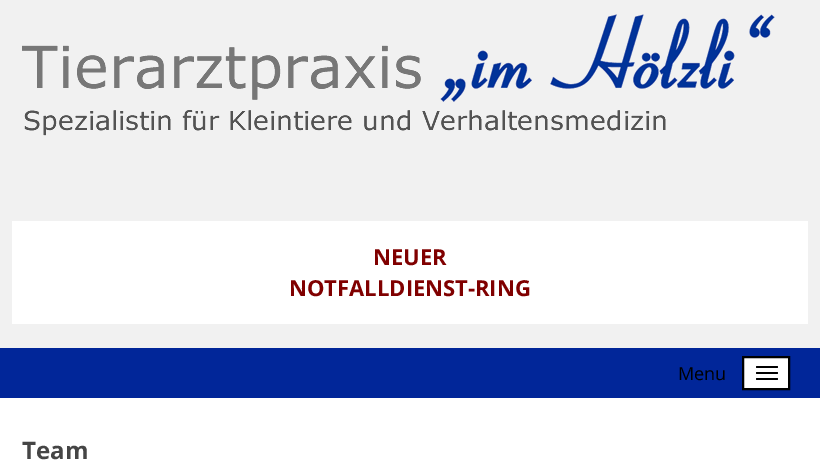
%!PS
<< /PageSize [820 462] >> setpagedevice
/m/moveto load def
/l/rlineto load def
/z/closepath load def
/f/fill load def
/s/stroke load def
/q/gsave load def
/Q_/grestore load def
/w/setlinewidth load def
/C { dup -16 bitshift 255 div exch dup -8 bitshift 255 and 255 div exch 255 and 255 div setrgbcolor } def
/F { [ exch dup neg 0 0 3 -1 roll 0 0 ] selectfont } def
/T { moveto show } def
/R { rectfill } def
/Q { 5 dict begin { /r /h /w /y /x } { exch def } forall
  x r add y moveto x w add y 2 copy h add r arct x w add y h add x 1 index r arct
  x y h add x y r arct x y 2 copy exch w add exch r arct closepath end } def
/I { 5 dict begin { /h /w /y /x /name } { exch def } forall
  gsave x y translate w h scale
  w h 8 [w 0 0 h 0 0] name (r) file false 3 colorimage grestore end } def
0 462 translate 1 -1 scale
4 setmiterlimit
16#FFFFFF C
0 0 820 462 R
16#F1F1F1 C
0 0 820 348 R
(1.rgb) 22 14 753 122 I
16#FFFFFF C
12 221 796 103 R
/OpenSans-Bold 22 F
16#800000 C
(NEUER) 373 265 T
(NOTFALLDIENST-RING) 289 296 T
16#012699 C
0 348 820 50 R
/OpenSans-Regular 18 F
16#000000 C
(Menu) 678 380 T
16#FFFFFF C
743 357 m 46 0 l 0 32 l -46 0 l z q f Q_
16#000000 C
2 w
s
756 366 22 2 1 Q f
756 372 22 2 1 Q f
756 378 22 2 1 Q f
/OpenSans-Bold 24 F
16#454545 C
(Team) 22 459 T
showpage
